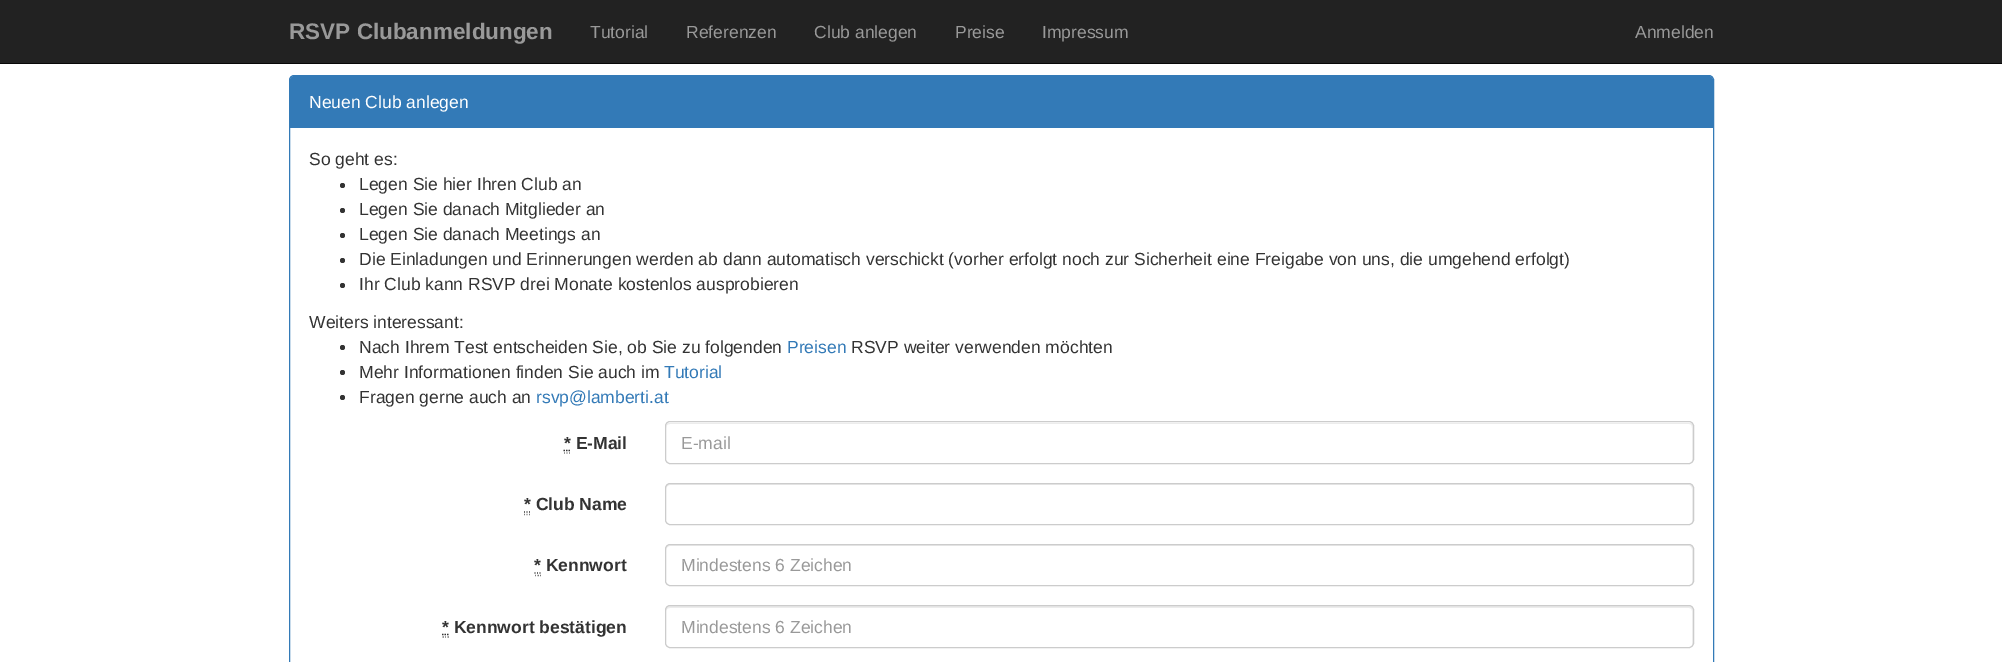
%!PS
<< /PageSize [2002 662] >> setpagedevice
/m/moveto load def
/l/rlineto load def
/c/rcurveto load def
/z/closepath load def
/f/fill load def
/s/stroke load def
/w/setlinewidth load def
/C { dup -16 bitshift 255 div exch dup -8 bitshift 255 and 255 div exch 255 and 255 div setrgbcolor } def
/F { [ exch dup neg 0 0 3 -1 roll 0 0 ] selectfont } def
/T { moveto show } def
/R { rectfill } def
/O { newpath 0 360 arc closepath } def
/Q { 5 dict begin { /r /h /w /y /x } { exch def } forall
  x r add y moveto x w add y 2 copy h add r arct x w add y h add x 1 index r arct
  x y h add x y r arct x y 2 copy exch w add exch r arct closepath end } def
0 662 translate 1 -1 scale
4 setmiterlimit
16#FFFFFF C
0 0 2002 662 R
16#222222 C
0 0 2002 63 R
16#080808 C
0 63 2002 1 R
/LiberationSans-Bold 22.5 F
16#999999 C
(RSVP Clubanmeldungen) 289 39 T
/LiberationSans-Regular 17.5 F
(Tutorial) 590 38 T
(Referenzen) 686 38 T
(Club anlegen) 814 38 T
(Preise) 955 38 T
(Impressum) 1042 38 T
(Anmelden) 1635 38 T
16#337AB7 C
289.5 75.5 1424 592 4.5 Q s
294 76 m 1415 0 l 2 0 4 2 4 4 c 0 48 l -1423 0 l 0 -48 l 0 -2 2 -4 4 -4 c z f
16#FFFFFF C
(Neuen Club anlegen) 309 108 T
16#333333 C
(So geht es:) 309 165 T
342.5 185.5 2.5 O f
(Legen Sie hier Ihren Club an) 359 190 T
342.5 210.5 2.5 O f
(Legen Sie danach Mitglieder an) 359 215 T
342.5 235.5 2.5 O f
(Legen Sie danach Meetings an) 359 240 T
342.5 260.5 2.5 O f
(Die Einladungen und Erinnerungen werden ab dann automatisch verschickt \(vorher erfolgt noch zur Sicherheit eine Freigabe von uns, die umgehend erfolgt\)) 359 265 T
342.5 285.5 2.5 O f
(Ihr Club kann RSVP drei Monate kostenlos ausprobieren) 359 290 T
(Weiters interessant:) 309 328 T
342.5 347.5 2.5 O f
(Nach Ihrem Test entscheiden Sie, ob Sie zu folgenden) 359 353 T
16#337AB7 C
(Preisen) 787 353 T
16#333333 C
(RSVP weiter verwenden möchten) 851 353 T
342.5 372.5 2.5 O f
(Mehr Informationen finden Sie auch im) 359 378 T
16#337AB7 C
(Tutorial) 664 378 T
16#333333 C
342.5 397.5 2.5 O f
(Fragen gerne auch an) 359 403 T
16#337AB7 C
(rsvp@lamberti.at) 536 403 T
16#333333 C
1.2 w
563.5 450.5 m 1.5 0 l 566 450.5 m 1.5 0 l 568.5 450.5 m 1.5 0 l s
/LiberationSans-Bold 17.5 F
(* E-Mail) 564 449 T
16#777777 C
564 453 m 1 0 l 566.5 453 m 1 0 l 569 453 m 1 0 l s
16#ECECEC C
670 424 m 1019 0 l 2 0 3 1 3 4 c 0 34 l 1 -2 l 0 -35 l -1 -1 -2 -2 -4 -2 c -1019 0 l -3 0 -4 2 -4 5 c 0 -3 2 -4 4 -4 c z f
16#CCCCCC C
1 w
665.5 421.5 1028 42 4.5 Q s
/LiberationSans-Regular 17.5 F
16#999999 C
(E-mail) 681 449 T
/LiberationSans-Bold 17.5 F
16#333333 C
(* Club Name) 524 510 T
16#777777 C
1.2 w
524 514.5 m 1 0 l 526.5 514.5 m 1 0 l 529 514.5 m 1 0 l s
16#333333 C
524 512 m 1 0 l 526.5 512 m 1 0 l 529 512 m 1 0 l s
16#ECECEC C
670 485 m 1019 0 l 2 0 3 2 3 4 c 0 34 l 1 -2 l 0 -35 l -1 -1 -2 -2 -4 -2 c -1019 0 l -3 0 -4 2 -4 5 c 0 -2 2 -4 4 -4 c z f
16#CCCCCC C
1 w
665.5 483.5 1028 41 4.5 Q s
16#333333 C
(* Kennwort) 534 571 T
16#777777 C
1.2 w
535 575.5 m 1 0 l 537.5 575.5 m 1.5 0 l 540 575.5 m 1 0 l s
16#333333 C
534.5 573 m 1 0 l 537 573 m 1 0 l 539.5 573 m 1 0 l s
16#ECECEC C
670 546 m 1019 0 l 2 0 3 2 3 4 c 0 34 l 1 -1 1 -2 1 -3 c 0 -32 l 0 -2 -2 -4 -4 -4 c -1019 0 l -2 0 -4 2 -4 4 c 0 1 l 0 -2 2 -4 4 -4 c z f
16#CCCCCC C
1 w
665.5 544.5 1028 41 4.5 Q s
/LiberationSans-Regular 17.5 F
16#999999 C
(Mindestens 6 Zeichen) 681 571 T
16#777777 C
1.2 w
442.5 637 m 1.5 0 l 445 637 m 1 0 l 447.5 637 m 1.5 0 l s
16#333333 C
442 634.5 m 1.5 0 l 444.5 634.5 m 1.5 0 l 447 634.5 m 1.5 0 l s
/LiberationSans-Bold 17.5 F
(* Kennwort bestätigen) 442 633 T
16#ECECEC C
670 608 m 1019 0 l 2 0 3 1 3 3 c 0 34 l 1 -1 1 -2 1 -3 c 0 -32 l 0 -2 -2 -4 -4 -4 c -1019 0 l -2 0 -4 2 -4 4 c 0 1 l 0 -2 2 -3 4 -3 c z f
16#CCCCCC C
1 w
665.5 605.5 1028 42 4.5 Q s
/LiberationSans-Regular 17.5 F
16#999999 C
(Mindestens 6 Zeichen) 681 633 T
showpage
